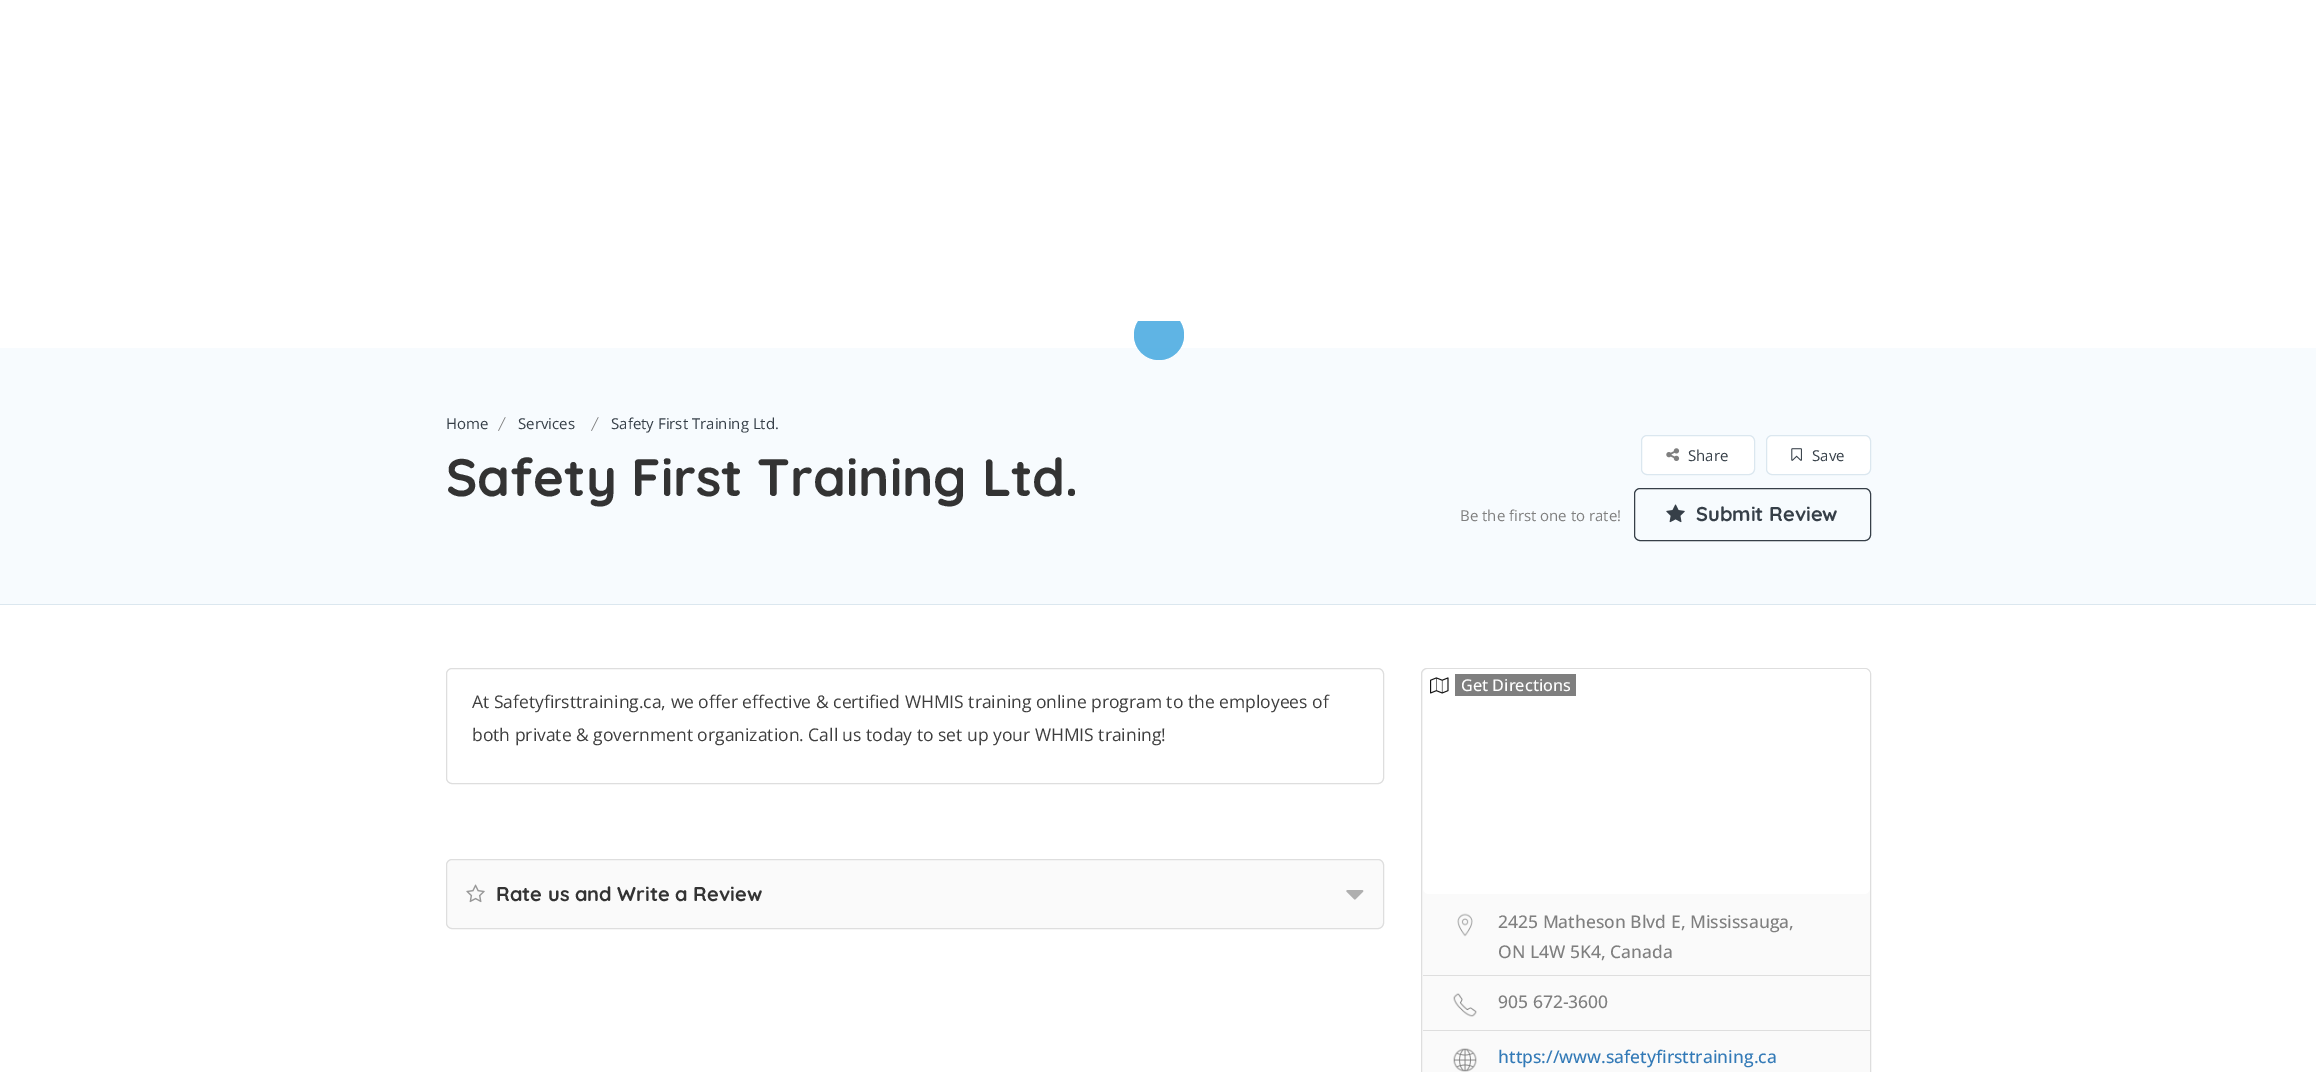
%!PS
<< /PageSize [2316 1072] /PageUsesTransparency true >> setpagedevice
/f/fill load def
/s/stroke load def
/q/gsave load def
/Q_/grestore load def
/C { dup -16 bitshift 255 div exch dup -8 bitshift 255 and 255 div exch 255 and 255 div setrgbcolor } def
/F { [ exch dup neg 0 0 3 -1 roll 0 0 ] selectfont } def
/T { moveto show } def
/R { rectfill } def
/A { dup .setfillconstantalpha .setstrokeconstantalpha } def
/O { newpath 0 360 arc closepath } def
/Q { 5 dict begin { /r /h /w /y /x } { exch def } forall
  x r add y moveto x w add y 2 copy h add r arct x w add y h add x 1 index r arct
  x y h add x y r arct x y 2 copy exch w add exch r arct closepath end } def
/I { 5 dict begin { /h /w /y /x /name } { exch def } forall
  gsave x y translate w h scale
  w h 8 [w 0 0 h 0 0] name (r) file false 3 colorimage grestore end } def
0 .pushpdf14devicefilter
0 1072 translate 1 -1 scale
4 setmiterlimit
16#FFFFFF C
0 0 2316 1072 R
16#F7FBFE C
0 348 2316 256 R
q
0 321 2316 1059 rectclip
0.6 A
16#41A6DF C
1159 335 25 O f
1159 335 25 O f
Q_
16#DBE7EF C
0 604 2316 1 R
/OpenSans-Regular 15 F
16#363F48 C
(Home) 446 429 T
/Quicksand-Regular 15 F
16#7F7F7F C
(/) 498 429 T
/OpenSans-Regular 15 F
16#363F48 C
(Services) 518 429 T
/Quicksand-Regular 15 F
16#7F7F7F C
(/) 591 429 T
/OpenSans-Regular 15 F
16#363F48 C
(Safety First Training Ltd.) 611 429 T
/Quicksand-Bold 52.5 F
16#333333 C
(Safety First Training Ltd.) 446 496 T
16#FFFFFF C
1641.5 435.5 113 39 5.5 Q q f Q_
16#DBE7EF C
s
(1.rgb) 1666 448 14 13 I
/OpenSans-Regular 15 F
16#363F48 C
(Share) 1688 461 T
16#FFFFFF C
1766.5 435.5 104 39 5.5 Q q f Q_
16#DBE7EF C
s
(2.rgb) 1791 448 11 13 I
16#363F48 C
(Save) 1812 461 T
16#7F7F7F C
(Be the first one to rate!) 1460 521 T
16#363F48 C
1634.5 488.5 236 52 5.5 Q s
(3.rgb) 1666 504 19 19 I
/Quicksand-Bold 20 F
(Submit Review) 1696 521 T
16#DEDEDE C
446.5 668.5 937 115 5.5 Q s
/OpenSans-Regular 17.5 F
16#3E3E3E C
(At Safetyfirsttraining.ca, we offer effective & certified WHMIS training online program to the employees of) 472 708 T
(both private & government organization. Call us today to set up your WHMIS training!) 472 741 T
16#FAFAFA C
446.5 859.5 937 69 5.5 Q q f Q_
16#DEDEDE C
s
(4.rgb) 466 884 19 19 I
/Quicksand-Bold 20 F
16#333333 C
(Rate us and Write a Review) 496 901 T
(5.rgb) 1346 890 18 10 I
16#FAFAFA C
1421.5 668.5 449 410 5.5 Q q f Q_
16#DEDEDE C
s
q
1423 669 447 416 5 Q clip newpath
16#FFFFFF C
1423 669 447 225 6 Q f
Q_
(6.rgb) 1430 677 19 17 I
16#7F7F7F C
1455 674 121 22 R
/OpenSans-Medium 16.25 F
16#FFFFFF C
(Get Directions) 1461 691 T
16#DEDEDE C
1423 975 447 1 R
(7.rgb) 1457 913 16 24 I
/OpenSans-Medium 17.5 F
16#7F7F7F C
(2425 Matheson Blvd E, Mississauga,) 1498 928 T
(ON L4W 5K4, Canada) 1498 958 T
16#DEDEDE C
1423 1030 447 1 R
(8.rgb) 1453 993 24 24 I
16#7F7F7F C
(905 672-3600) 1498 1008 T
(9.rgb) 1453 1048 24 24 I
16#337AB7 C
(https://www.safetyfirsttraining.ca) 1498 1063 T
.poppdf14devicefilter showpage
